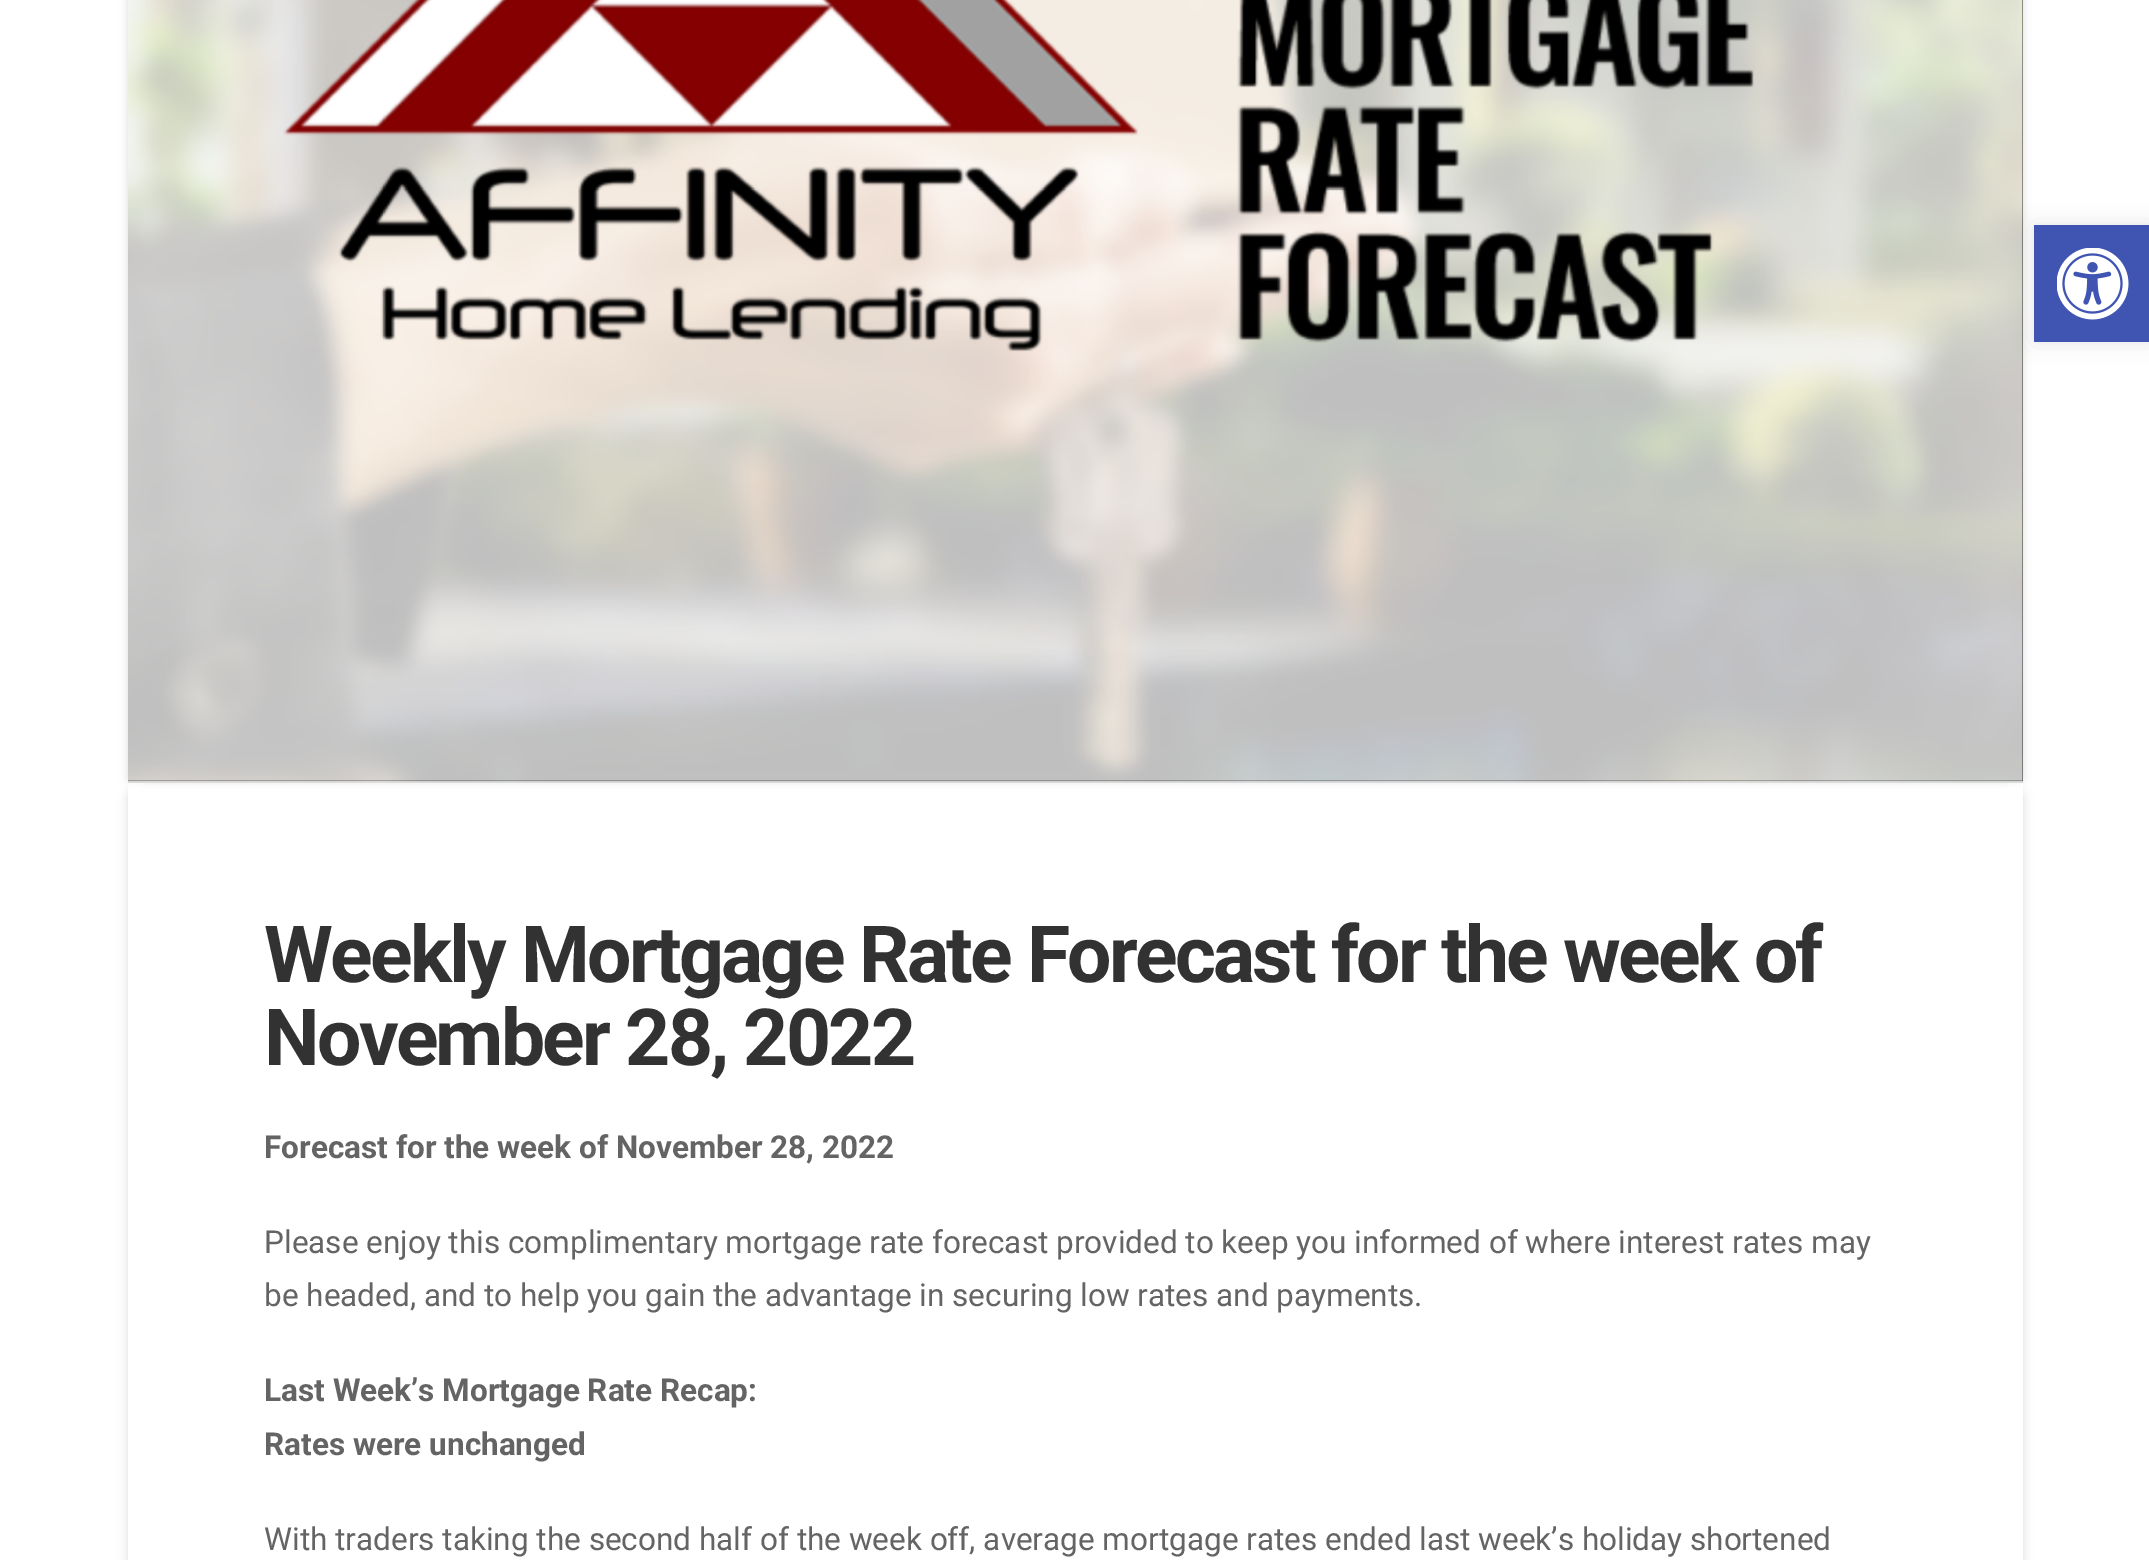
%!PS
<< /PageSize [2149 1560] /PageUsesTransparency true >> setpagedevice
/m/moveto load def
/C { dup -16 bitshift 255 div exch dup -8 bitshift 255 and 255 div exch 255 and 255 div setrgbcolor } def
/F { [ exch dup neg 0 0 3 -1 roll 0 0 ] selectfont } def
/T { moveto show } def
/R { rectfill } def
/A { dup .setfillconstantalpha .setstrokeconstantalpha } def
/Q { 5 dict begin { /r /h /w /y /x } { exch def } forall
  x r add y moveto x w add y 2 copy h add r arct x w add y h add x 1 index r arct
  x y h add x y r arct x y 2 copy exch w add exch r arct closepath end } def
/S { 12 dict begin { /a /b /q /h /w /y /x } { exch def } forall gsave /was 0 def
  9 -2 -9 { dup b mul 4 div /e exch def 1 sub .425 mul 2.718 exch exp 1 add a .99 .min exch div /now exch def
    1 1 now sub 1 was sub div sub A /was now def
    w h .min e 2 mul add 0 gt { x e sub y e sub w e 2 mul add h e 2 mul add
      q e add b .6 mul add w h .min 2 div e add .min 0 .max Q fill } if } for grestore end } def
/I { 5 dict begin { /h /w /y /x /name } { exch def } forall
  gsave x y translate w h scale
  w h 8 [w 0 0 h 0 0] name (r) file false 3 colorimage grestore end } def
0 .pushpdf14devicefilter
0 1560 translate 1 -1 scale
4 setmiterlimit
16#FFFFFF C
0 0 2149 1560 R
16#000000 C
128 788 1895 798 9 5.5 .13 S
16#FFFFFF C
128 783 1895 777 R
16#000000 C
128 -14 1877 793 0 4.5 .13 S
146 -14 1877 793 0 4.5 .13 S
128 0 1895 781 R
16#DDDDDD C
128 781 1895 2 R
(2.rgb) 128 0 1895 782 I
16#000000 C
2034 225 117 117 0 11 .1 S
16#4054B2 C
2034 225 115 117 R
(1.rgb) 2057 248 72 72 I
/Roboto-Bold 78.75 F
16#323232 C
264 982 m -2.75 0 (Weekly Mortgage Rate Forecast for the week of) ashow
264 1065 m -2.75 0 (November 28, 2022) ashow
/Roboto-Bold 31.5 F
16#646464 C
(Forecast for the week of November 28, 2022) 264 1158 T
/Roboto-Regular 31.5 F
(Please enjoy this complimentary mortgage rate forecast provided to keep you informed of where interest rates may) 264 1253 T
(be headed, and to help you gain the advantage in securing low rates and payments.) 264 1306 T
/Roboto-Bold 31.5 F
(Last Week’s Mortgage Rate Recap:) 264 1401 T
(Rates were unchanged) 264 1455 T
/Roboto-Regular 31.5 F
(With traders taking the second half of the week off, average mortgage rates ended last week’s holiday shortened) 264 1550 T
.poppdf14devicefilter showpage
